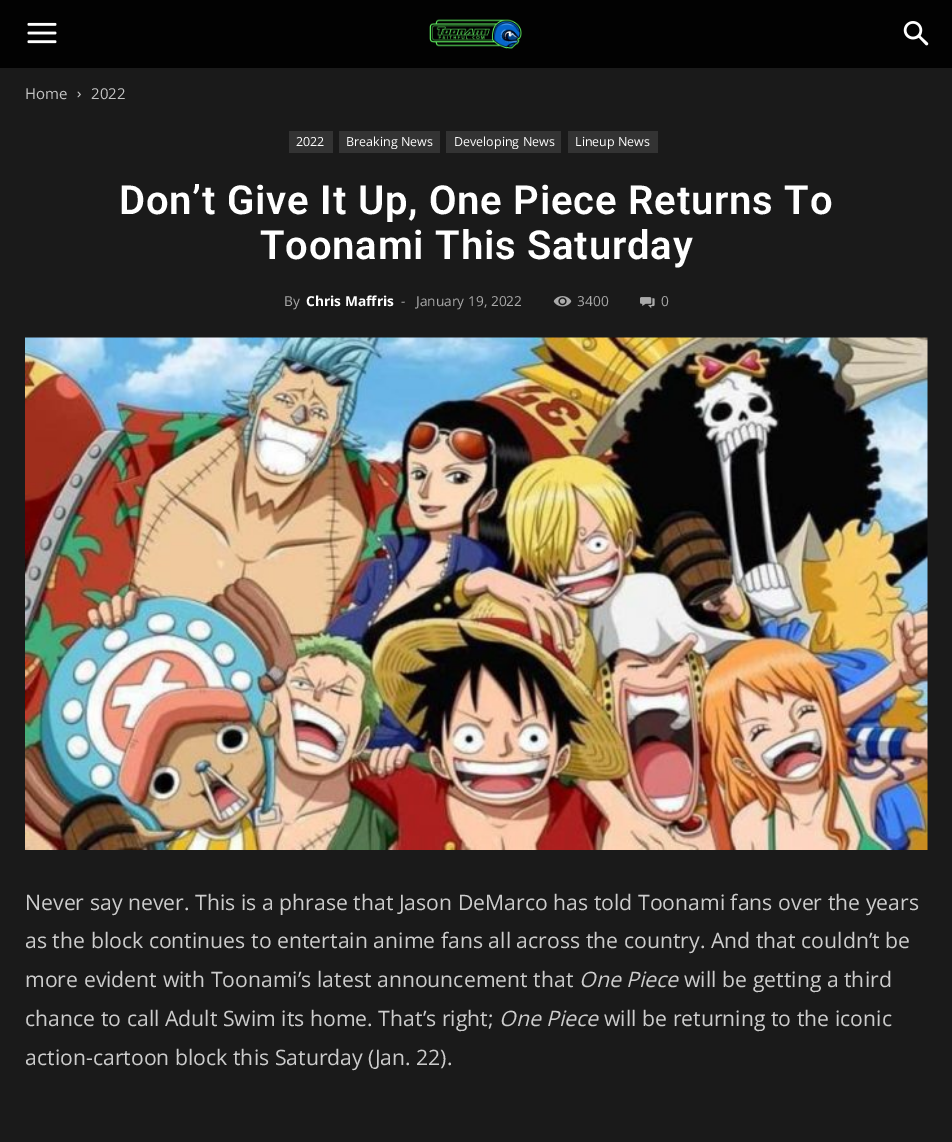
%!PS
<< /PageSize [952 1142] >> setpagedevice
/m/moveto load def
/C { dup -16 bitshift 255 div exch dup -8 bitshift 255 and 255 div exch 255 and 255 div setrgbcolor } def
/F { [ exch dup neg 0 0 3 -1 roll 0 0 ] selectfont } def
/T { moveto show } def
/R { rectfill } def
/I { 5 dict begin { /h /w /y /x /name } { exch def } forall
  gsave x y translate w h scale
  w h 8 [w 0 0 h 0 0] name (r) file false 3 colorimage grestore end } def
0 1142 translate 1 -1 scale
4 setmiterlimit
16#1A1A1A C
0 0 952 1142 R
16#020202 C
0 0 952 68 R
(1.rgb) 27 22 30 22 I
(2.rgb) 429 19 93 30 I
(3.rgb) 903 21 26 25 I
/OpenSans-Regular 15 F
16#C3C3C3 C
(Home) 25 99 T
(4.rgb) 77 91 4 7 I
(2022) 91 99 T
16#333333 C
289 131 44 22 R
/OpenSans-Regular 12.5 F
16#FFFFFF C
(2022) 296 146 T
16#333333 C
339 131 101 22 R
16#FFFFFF C
(Breaking News) 346 146 T
16#333333 C
446 131 115 22 R
16#FFFFFF C
(Developing News) 454 146 T
16#333333 C
568 131 90 22 R
16#FFFFFF C
(Lineup News) 575 146 T
/Roboto-SemiBold 40 F
119 214 m .8 0 (Don’t Give It Up, One Piece Returns To) ashow
260 259 m .8 0 (Toonami This Saturday) ashow
/OpenSans-Regular 13.75 F
16#AAAAAA C
(By) 284 306 T
/OpenSans-Bold 13.75 F
16#FFFFFF C
(Chris Maffris) 306 306 T
/OpenSans-Regular 13.75 F
16#AAAAAA C
(-) 401 306 T
(January 19, 2022) 416 306 T
(5.rgb) 553 296 19 11 I
(3400) 577 306 T
(6.rgb) 640 297 15 12 I
(0) 661 306 T
(7.rgb) 25 337 903 513 I
/OpenSans-Regular 21.25 F
16#CCCCCC C
(Never say never. This is a phrase that Jason DeMarco has told Toonami fans over the years) 25 910 T
(as the block continues to entertain anime fans all across the country. And that couldn’t be) 25 948 T
(more evident with Toonami’s latest announcement that) 25 987 T
/OpenSans-Italic 21.25 F
(One Piece) 579 987 T
/OpenSans-Regular 21.25 F
(will be getting a third) 684 987 T
(chance to call Adult Swim its home. That’s right;) 25 1026 T
/OpenSans-Italic 21.25 F
(One Piece) 499 1026 T
/OpenSans-Regular 21.25 F
(will be returning to the iconic) 604 1026 T
(action-cartoon block this Saturday \(Jan. 22\).) 25 1065 T
showpage
